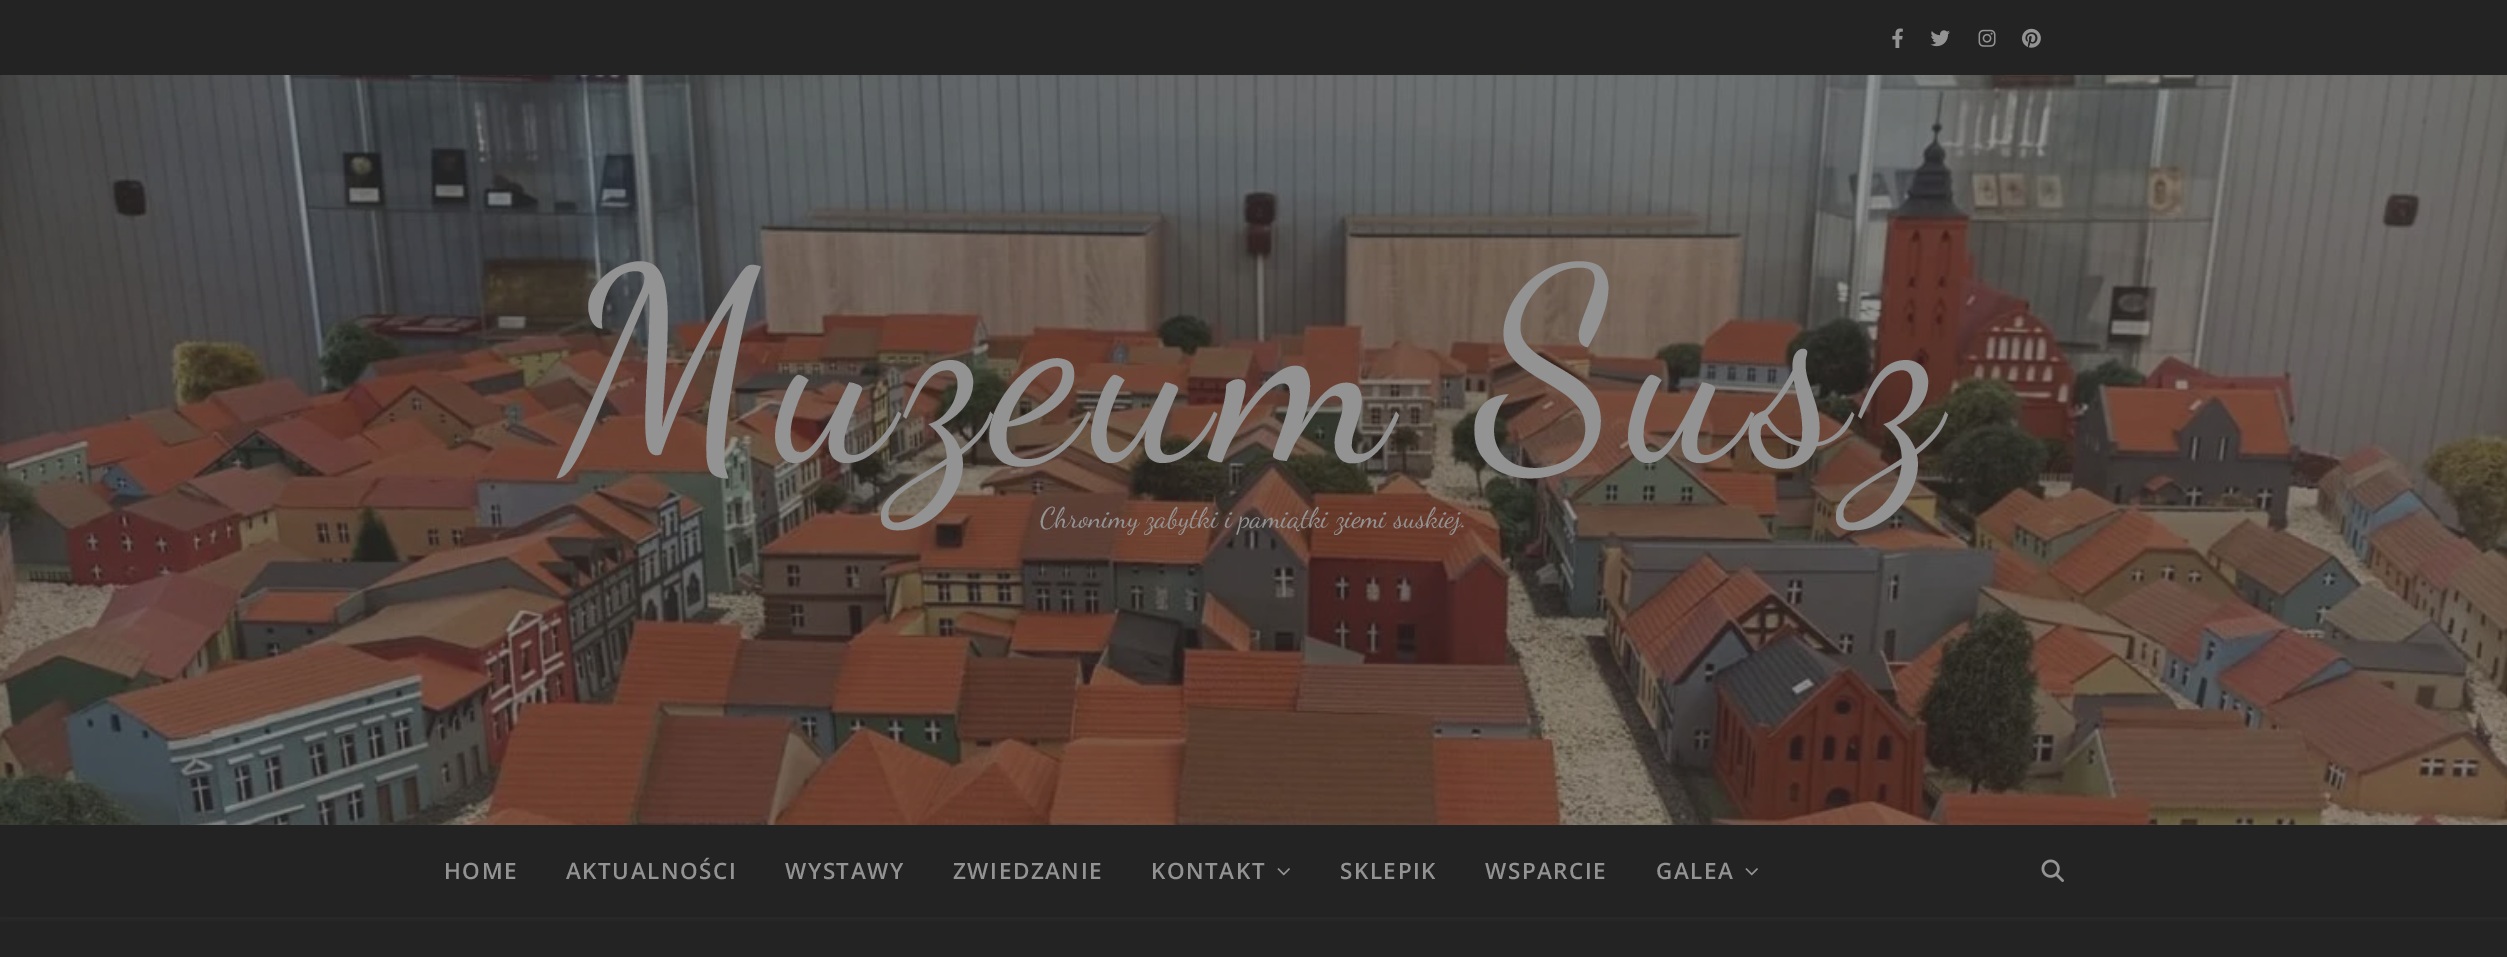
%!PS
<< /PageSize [2507 957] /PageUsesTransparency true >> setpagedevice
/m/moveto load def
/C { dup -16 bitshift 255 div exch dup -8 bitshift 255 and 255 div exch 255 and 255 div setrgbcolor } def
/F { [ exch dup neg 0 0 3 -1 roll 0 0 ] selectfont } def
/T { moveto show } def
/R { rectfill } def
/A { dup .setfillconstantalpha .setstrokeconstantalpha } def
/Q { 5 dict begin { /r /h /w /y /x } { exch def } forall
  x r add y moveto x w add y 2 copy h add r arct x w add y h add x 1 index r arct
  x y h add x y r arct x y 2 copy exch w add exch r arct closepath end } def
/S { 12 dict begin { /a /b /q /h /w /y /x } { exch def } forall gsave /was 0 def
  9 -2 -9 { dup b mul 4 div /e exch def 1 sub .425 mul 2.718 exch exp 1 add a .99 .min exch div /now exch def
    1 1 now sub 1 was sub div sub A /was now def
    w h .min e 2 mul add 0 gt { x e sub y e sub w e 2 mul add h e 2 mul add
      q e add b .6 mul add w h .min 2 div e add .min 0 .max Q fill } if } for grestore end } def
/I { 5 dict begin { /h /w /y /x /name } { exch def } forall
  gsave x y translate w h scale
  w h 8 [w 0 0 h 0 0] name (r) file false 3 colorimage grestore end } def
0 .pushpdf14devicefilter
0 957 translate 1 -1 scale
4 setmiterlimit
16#232323 C
0 0 2507 957 R
(1.rgb) 1892 28 11 20 I
(2.rgb) 1930 30 20 17 I
(3.rgb) 1978 29 18 18 I
(4.rgb) 2022 28 19 20 I
(5.rgb) 0 75 2507 750 I
/DancingScript-Regular 270 F
16#939393 C
561 455 m 7.5 0 (Muzeum Susz) ashow
/DancingScript-Regular 28.5 F
(Chronimy zabytki i pamiątki ziemi suskiej.) 1040 527 T
0 827 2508 91 0 4 .1 S
16#232323 C
0 825 2507 92 R
/OpenSans-SemiBold 22.5 F
16#939393 C
444 879 m 1.5 0 (HOME) ashow
566 879 m 1.5 0 (AKTUALNOŚCI) ashow
785 879 m 1.5 0 (WYSTAWY) ashow
953 879 m 1.5 0 (ZWIEDZANIE) ashow
1151 879 m 1.5 0 (KONTAKT) ashow
(6.rgb) 1277 868 13 8 I
1340 879 m 1.5 0 (SKLEPIK) ashow
1485 879 m 1.5 0 (WSPARCIE) ashow
1656 879 m 1.5 0 (GALEA) ashow
(6.rgb) 1745 868 13 8 I
(7.rgb) 2041 859 23 23 I
.poppdf14devicefilter showpage
